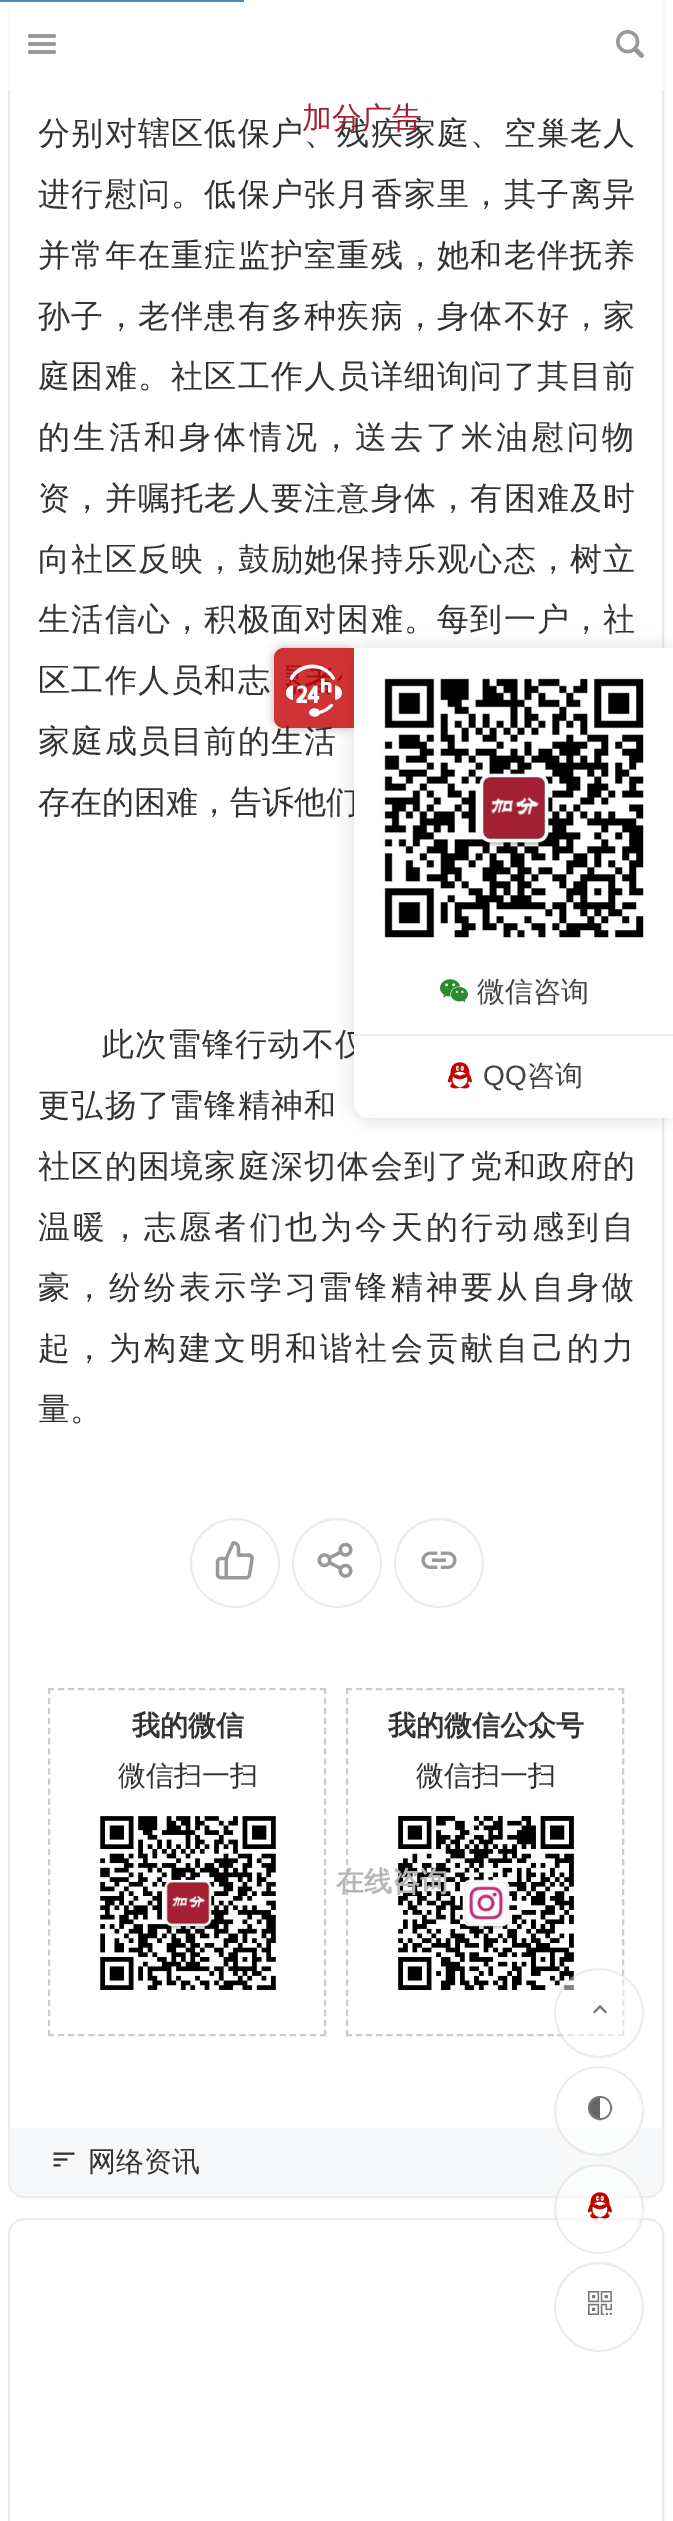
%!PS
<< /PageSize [673 2521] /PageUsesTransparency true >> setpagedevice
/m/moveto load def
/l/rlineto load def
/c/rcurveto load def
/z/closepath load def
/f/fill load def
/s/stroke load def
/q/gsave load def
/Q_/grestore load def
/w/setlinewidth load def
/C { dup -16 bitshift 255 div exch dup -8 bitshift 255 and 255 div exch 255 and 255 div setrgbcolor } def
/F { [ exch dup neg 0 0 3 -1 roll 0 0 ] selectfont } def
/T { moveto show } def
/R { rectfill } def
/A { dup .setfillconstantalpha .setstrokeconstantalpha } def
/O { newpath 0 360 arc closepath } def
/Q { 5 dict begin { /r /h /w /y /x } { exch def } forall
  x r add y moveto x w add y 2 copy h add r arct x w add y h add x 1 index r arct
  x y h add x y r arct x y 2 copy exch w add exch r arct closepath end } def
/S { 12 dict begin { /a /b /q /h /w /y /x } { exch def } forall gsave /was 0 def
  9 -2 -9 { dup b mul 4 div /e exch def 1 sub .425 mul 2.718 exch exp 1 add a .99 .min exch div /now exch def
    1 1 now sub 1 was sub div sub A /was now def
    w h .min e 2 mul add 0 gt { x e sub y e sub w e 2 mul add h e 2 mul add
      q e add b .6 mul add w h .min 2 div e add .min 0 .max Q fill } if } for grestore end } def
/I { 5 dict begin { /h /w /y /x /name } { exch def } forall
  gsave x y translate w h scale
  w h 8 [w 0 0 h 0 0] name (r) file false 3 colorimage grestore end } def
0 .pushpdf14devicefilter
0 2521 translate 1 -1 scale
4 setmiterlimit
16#FFFFFF C
0 0 673 2521 R
16#ECECEC C
2 w
9 -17 654 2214 15 Q s
0.8 A
16#FFFFFF C
8 0 656 90 R
1 A
16#4D8CB8 C
0 0 244 2 R
16#999999 C
28 42 28 4 2 Q f
28 34 28 4 2 Q f
28 50 28 4 2 Q f
(1.rgb) 616 30 28 28 I
/WenQuanYiZenHei-Medium 32 F
16#333333 C
38 144 m 1.25 0 (分别对辖区低保户、残疾家庭、空巢老人) ashow
/WenQuanYiZenHei-Medium 30 F
16#A42032 C
(加分广告) 302 128 T
/WenQuanYiZenHei-Medium 32 F
16#333333 C
38 205 m 1.25 0 (进行慰问。低保户张月香家里，其子离异) ashow
38 266 m 1.25 0 (并常年在重症监护室重残，她和老伴抚养) ashow
38 327 m 1.25 0 (孙子，老伴患有多种疾病，身体不好，家) ashow
38 387 m 1.25 0 (庭困难。社区工作人员详细询问了其目前) ashow
38 448 m 3.25 0 (的生活和身体情况，送去了米油慰问物) ashow
38 509 m 1.25 0 (资，并嘱托老人要注意身体，有困难及时) ashow
38 570 m 1.25 0 (向社区反映，鼓励她保持乐观心态，树立) ashow
38 630 m 1.25 0 (生活信心，积极面对困难。每到一户，社) ashow
38 691 m 1.25 0 (区工作人员和志) ashow
38 752 m 1.25 0 (家庭成员目前的生活) ashow
(存在的困难，告诉他们) 38 813 T
102 1055 m 1.25 0 (此次雷锋行动不仅) ashow
38 1116 m 1.25 0 (更弘扬了雷锋精神和) ashow
38 1177 m 1.25 0 (社区的困境家庭深切体会到了党和政府的) ashow
38 1238 m 3.25 0 (温暖，志愿者们也为今天的行动感到自) ashow
38 1298 m 3.25 0 (豪，纷纷表示学习雷锋精神要从自身做) ashow
38 1359 m 3.25 0 (起，为构建文明和谐社会贡献自己的力) ashow
(量。) 38 1420 T
16#ECECEC C
235 1563 44 O s
(2.rgb) 215 1541 39 39 I
337 1563 44 O s
(3.rgb) 317 1542 36 36 I
439 1563 44 O s
(4.rgb) 421 1551 36 18 I
16#CCCCCC C
[6 4.08] 0 setdash
48 1689 m 278 0 l s
[6 4.06] 0 setdash
325 1688 m 0 348 l s
[6 4.08] 0 setdash
48 2035 m 278 0 l s
[6 4.06] 0 setdash
49 1688 m 0 348 l s
/WenQuanYiZenHei-Bold 28 F
16#333333 C
(我的微信) 132 1735 T
/WenQuanYiZenHei-Medium 28 F
(微信扫一扫) 118 1785 T
(5.rgb) 100 1816 176 174 I
16#CCCCCC C
[6 4.08] 0 setdash
346 1689 m 278 0 l s
[6 4.06] 0 setdash
623 1688 m 0 348 l s
[6 4.08] 0 setdash
346 2035 m 278 0 l s
[6 4.06] 0 setdash
347 1688 m 0 348 l s
/WenQuanYiZenHei-Bold 28 F
16#333333 C
(我的微信公众号) 388 1735 T
/WenQuanYiZenHei-Medium 28 F
(微信扫一扫) 416 1785 T
(6.rgb) 396 1814 178 176 I
16#F7F8F9 C
10 2128 m 652 0 l 0 52 l 0 9 -7 16 -16 16 c -620 0 l -9 0 -16 -7 -16 -16 c z f
(7.rgb) 53 2152 22 15 I
16#333333 C
(网络资讯) 88 2171 T
16#ECECEC C
[] 0 setdash
9 2219 654 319 15 Q s
16#000000 C
348 642 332 482 22 6 .07 S
0.07 A
355 649 m 318 0 l 0 468 l -303 0 l -8.5 0 -15 -6.5 -15 -15 c z s
q
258 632 m 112 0 l 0 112 l -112 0 l z 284 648 m 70 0 l 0 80 l -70 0 l -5.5 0 -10 -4.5 -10 -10 c 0 -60 l 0 -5.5 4.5 -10 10 -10 c z eoclip newpath
1 A
274 648 80 80 10 5 .3 S
Q_
0.8 A
16#C40000 C
284 648 m 70 0 l 0 80 l -70 0 l -5.5 0 -10 -4.5 -10 -10 c 0 -60 l 0 -5.5 4.5 -10 10 -10 c z f
1 A
(8.rgb) 286 664 56 53 I
16#FFFFFF C
354 648 319 386 R
16#ECECEC C
354 1034 319 2 R
(9.rgb) 381 677 263 261 I
(10.rgb) 440 979 28 24 I
16#444444 C
(微信咨询) 477 1001 T
16#FFFFFF C
354 1036 m 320 0 l 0 82 l -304 0 l -9 0 -16 -7 -16 -16 c z f
(11.rgb) 447 1062 25 27 I
/LiberationSans-Regular 28 F
16#444444 C
(QQ) 483 1085 T
/WenQuanYiZenHei-Medium 28 F
(咨询) 527 1085 T
/WenQuanYiZenHei-Bold 28 F
16#B6B6B6 C
(在线咨询) 336 1891 T
0.5 A
16#FFFFFF C
599 2209 45 O f
0.07 A
16#000000 C
599 2209 44 O s
1 A
(12.rgb) 587 2192 25 27 I
0.5 A
16#FFFFFF C
599 2013 45 O f
0.07 A
16#000000 C
599 2013 44 O s
1 A
(13.rgb) 593 2005 14 9 I
0.5 A
16#FFFFFF C
599 2111 45 O f
0.07 A
16#000000 C
599 2111 44 O s
1 A
16#666666 C
600 2108 11 O q f Q_
16#777777 C
s
16#FFFFFF C
600 2098 m 5.5 0 10 4.5 10 10 c 0 5.5 -4.5 10 -10 10 c z f
16#ECECEC C
599 2307 44 O s
(14.rgb) 588 2291 24 24 I
.poppdf14devicefilter showpage
